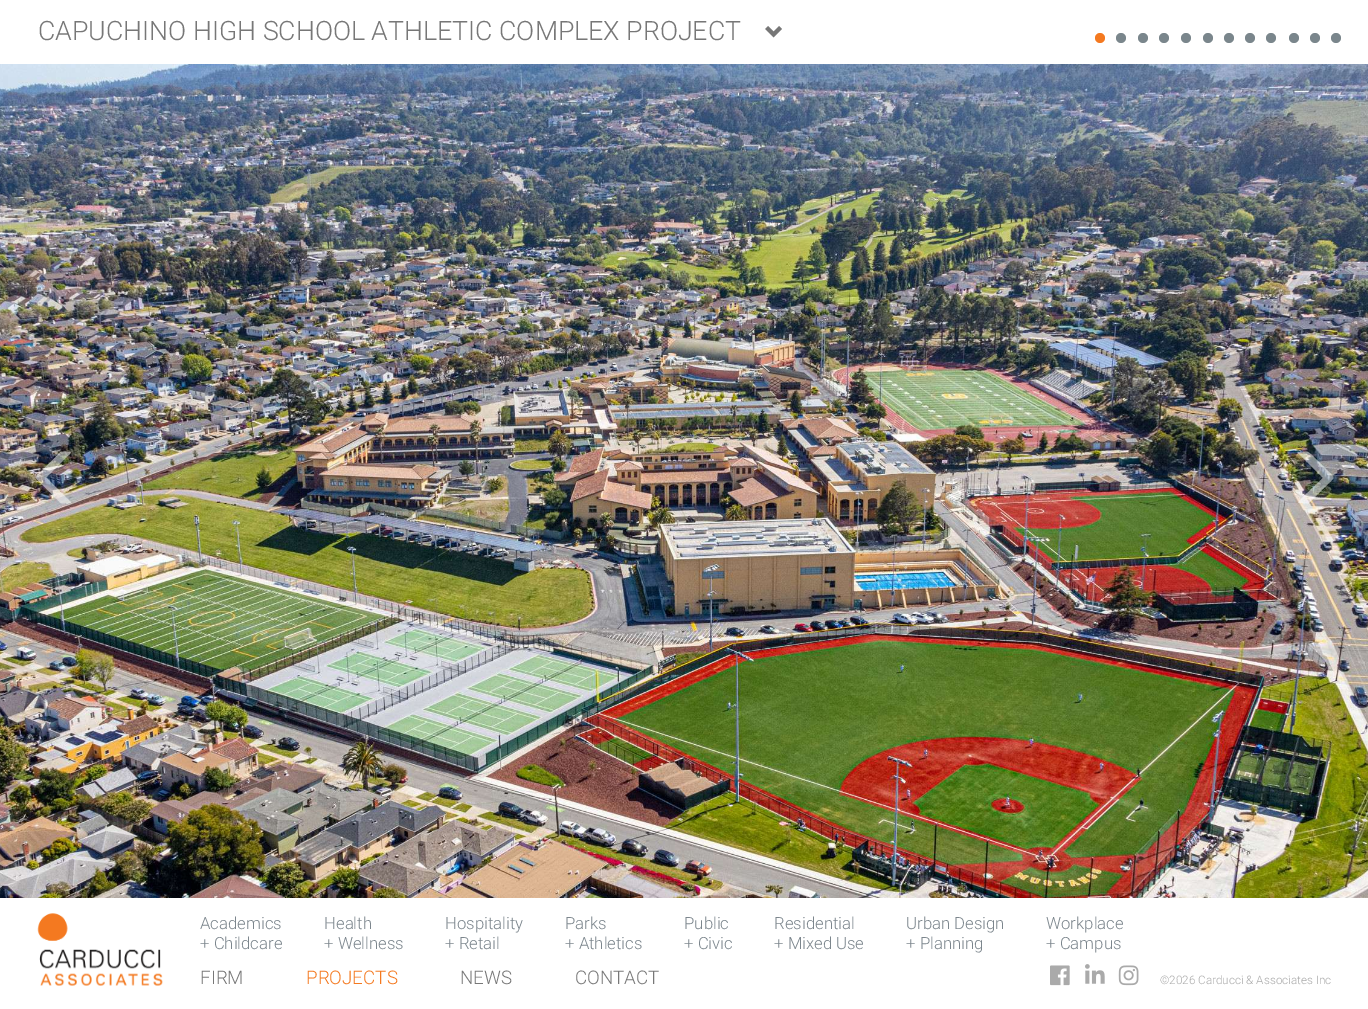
%!PS
<< /PageSize [1368 1009] /PageUsesTransparency true >> setpagedevice
/m/moveto load def
/l/rlineto load def
/c/rcurveto load def
/z/closepath load def
/f/fill load def
/C { dup -16 bitshift 255 div exch dup -8 bitshift 255 and 255 div exch 255 and 255 div setrgbcolor } def
/F { [ exch dup neg 0 0 3 -1 roll 0 0 ] selectfont } def
/T { moveto show } def
/R { rectfill } def
/A { dup .setfillconstantalpha .setstrokeconstantalpha } def
/O { newpath 0 360 arc closepath } def
/I { 5 dict begin { /h /w /y /x /name } { exch def } forall
  gsave x y translate w h scale
  w h 8 [w 0 0 h 0 0] name (r) file false 3 colorimage grestore end } def
0 .pushpdf14devicefilter
0 1009 translate 1 -1 scale
4 setmiterlimit
16#FFFFFF C
0 0 1368 1009 R
/Roboto-Light 26.7 F
16#777777 C
(CAPUCHINO HIGH SCHOOL ATHLETIC COMPLEX PROJECT) 38 40 T
(1.rgb) 765 26 17 12 I
16#F47920 C
1100 38 5 O f
16#7A868C C
1121 38 5 O f
1143 38 5 O f
1164 38 5 O f
1186 38 5 O f
1208 38 5 O f
1229 38 5 O f
1250 38 5 O f
1271 38 5 O f
1294 38 5 O f
1315 38 5 O f
1336 38 5 O f
(2.rgb) 0 64 1368 834 I
(3.rgb) 35 451 36 53 I
0.5 A
16#FFFFFF C
1299 452 m 10 0 7 -2 14 4 c 16 16 l 6 6 6 5 0 11 c -16 16 l -6 6 -4 4 -12 4 c -6 0 -1 -2 1 -5 c 21 -20 l -25 -25 l 0 -1 0 -1 1 -1 c z f
1 A
(4.rgb) 37 913 126 73 I
/Roboto-Light 16.75 F
16#7C868D C
(Academics) 200 929 T
(+ Childcare) 200 949 T
(Health) 324 929 T
(+ Wellness) 324 949 T
(Hospitality) 445 929 T
(+ Retail) 445 949 T
(Parks) 565 929 T
(+ Athletics) 565 949 T
(Public) 684 929 T
(+ Civic) 684 949 T
(Residential) 774 929 T
(+ Mixed Use) 774 949 T
(Urban Design) 906 929 T
(+ Planning) 906 949 T
(Workplace) 1046 929 T
(+ Campus) 1046 949 T
/Roboto-Light 18.75 F
16#777777 C
(FIRM) 200 984 T
16#F47920 C
(PROJECTS) 306 984 T
16#777777 C
(NEWS) 460 984 T
(CONTACT) 575 984 T
(5.rgb) 1050 965 20 21 I
(6.rgb) 1085 964 20 20 I
(7.rgb) 1118 965 21 21 I
/Roboto-Light 11.7 F
16#AAAAAA C
(©2026 Carducci & Associates Inc) 1160 984 T
.poppdf14devicefilter showpage
